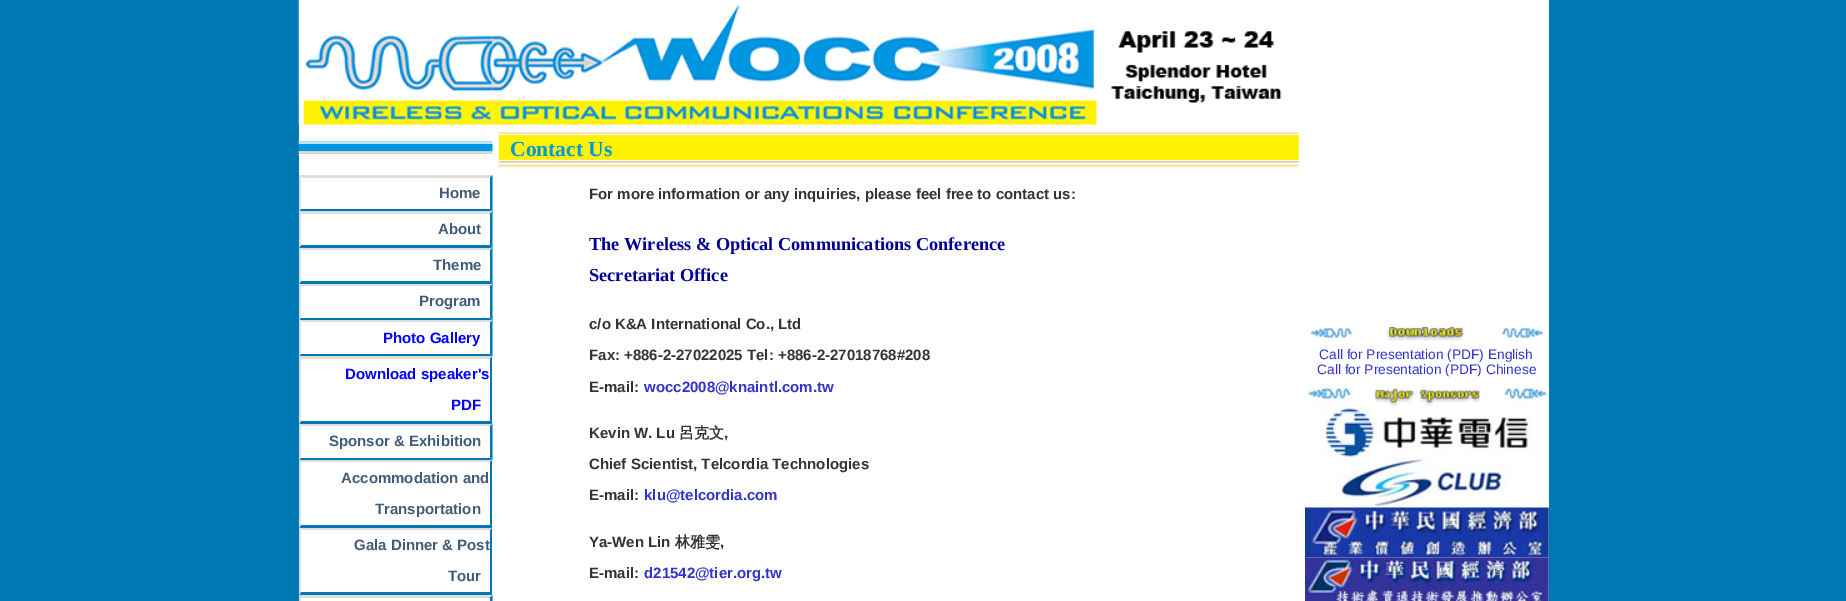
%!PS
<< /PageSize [1846 601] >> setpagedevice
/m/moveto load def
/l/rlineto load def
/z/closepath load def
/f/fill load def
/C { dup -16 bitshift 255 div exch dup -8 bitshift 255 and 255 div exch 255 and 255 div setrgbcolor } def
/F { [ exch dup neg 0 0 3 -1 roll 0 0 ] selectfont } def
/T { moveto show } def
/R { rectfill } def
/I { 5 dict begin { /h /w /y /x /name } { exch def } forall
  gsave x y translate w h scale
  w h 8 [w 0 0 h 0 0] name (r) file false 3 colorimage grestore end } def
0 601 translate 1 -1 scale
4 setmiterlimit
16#0078B4 C
0 0 1846 601 R
16#FFFFFF C
299 0 1250 601 R
(1.rgb) 298 0 195 125 I
(2.rgb) 298 140 195 15 I
16#DDDDDD C
299 175 m 193 0 l -2 3 l -189 0 l z f
16#0078B4 C
492.5 175 m 0 36 l -2.5 -2 l 0 -31.5 l z f
492 211 m -193 0 l 2 -2 l 189 0 l z f
16#DDDDDD C
299 211 m 0 -36 l 2 2.5 l 0 31.5 l z f
/LiberationSans-Bold 15 F
16#425B78 C
(Home) 439 198 T
16#DDDDDD C
299 211 m 193 0 l -2 3 l -189 0 l z f
16#0078B4 C
492.5 211 m 0 36.5 l -2.5 -2.5 l 0 -31 l z f
492 248 m -193 0 l 2 -3 l 189 0 l z f
16#DDDDDD C
299 247.5 m 0 -36.5 l 2 3 l 0 31 l z f
16#425B78 C
(About) 438 234 T
16#DDDDDD C
299 248 m 193 0 l -2 2 l -189 0 l z f
16#0078B4 C
492.5 247.5 m 0 36.5 l -2.5 -3 l 0 -31 l z f
492 284 m -193 0 l 2 -3 l 189 0 l z f
16#DDDDDD C
299 284 m 0 -36.5 l 2 2.5 l 0 31 l z f
16#425B78 C
(Theme) 433 270 T
16#DDDDDD C
299 284 m 193 0 l -2 2 l -189 0 l z f
16#0078B4 C
492.5 284 m 0 36 l -2.5 -2.5 l 0 -31.5 l z f
492 320 m -193 0 l 2 -2 l 189 0 l z f
16#DDDDDD C
299 320 m 0 -36 l 2 2 l 0 31.5 l z f
16#425B78 C
(Program) 419 306 T
16#DDDDDD C
299 320 m 193 0 l -2 2 l -189 0 l z f
16#0078B4 C
492.5 320 m 0 36 l -2.5 -2 l 0 -31.5 l z f
492 356 m -193 0 l 2 -2 l 189 0 l z f
16#DDDDDD C
299 356 m 0 -36 l 2 2.5 l 0 31.5 l z f
16#0000FF C
(Photo Gallery) 383 343 T
16#DDDDDD C
299 356 m 193 0 l -2 3 l -189 0 l z f
16#0078B4 C
492 356 m 0 68 l -2 -3 l 0 -62 l z f
492 424 m -193 0 l 2 -3 l 189 0 l z f
16#DDDDDD C
299 424 m 0 -68 l 2 3 l 0 62 l z f
16#0000FF C
(Download speaker's) 345 379 T
(PDF) 451 410 T
16#DDDDDD C
299 424 m 193 0 l -2 2 l -189 0 l z f
16#0078B4 C
492.5 424 m 0 36 l -2.5 -2.5 l 0 -31.5 l z f
492 460 m -193 0 l 2 -2 l 189 0 l z f
16#DDDDDD C
299 460 m 0 -36 l 2 2 l 0 31.5 l z f
16#425B78 C
(Sponsor & Exhibition) 329 446 T
16#DDDDDD C
299 460 m 193 0 l -2 2 l -189 0 l z f
16#0078B4 C
492 460 m 0 68 l -2 -3 l 0 -63 l z f
492 528 m -193 0 l 2 -3 l 189 0 l z f
16#DDDDDD C
299 528 m 0 -68 l 2 2 l 0 63 l z f
16#425B78 C
(Accommodation and) 341 483 T
(Transportation) 375 514 T
16#DDDDDD C
299 528 m 193 0 l -2 2 l -189 0 l z f
16#0078B4 C
492 528 m 0 67 l -2 -3 l 0 -62 l z f
492 595 m -193 0 l 2 -3 l 189 0 l z f
16#DDDDDD C
299 595 m 0 -67 l 2 2 l 0 62 l z f
16#425B78 C
(Gala Dinner & Post) 354 550 T
(Tour) 448 581 T
16#DDDDDD C
299 595 m 193 0 l -2 3 l -189 0 l z f
16#0078B4 C
492.5 595 m 0 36 l -2.5 -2 l 0 -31.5 l z f
16#DDDDDD C
299 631 m 0 -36 l 2 2.5 l 0 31.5 l z f
(3.rgb) 492 5 790 120 I
(4.rgb) 498 132 801 36 I
/LiberationSerif-Bold 21.5 F
16#0097E0 C
(Contact Us) 510 156 T
/LiberationSans-Bold 15 F
16#333333 C
(For more information or any inquiries, please feel free to contact us:) 589 199 T
/LiberationSerif-Bold 18.3 F
16#000099 C
(The Wireless & Optical Communications Conference) 589 250 T
(Secretariat Office) 589 281 T
/LiberationSans-Bold 15 F
16#333333 C
(c/o K&A International Co., Ltd) 589 329 T
(Fax: +886-2-27022025 Tel: +886-2-27018768#208) 589 360 T
(E-mail:) 589 392 T
16#3333CC C
(wocc2008@knaintl.com.tw) 644 392 T
16#333333 C
(Kevin W. Lu) 589 438 T
/WenQuanYiZenHei-Bold 15 F
(呂克文) 679 438 T
/LiberationSans-Bold 15 F
(,) 724 438 T
(Chief Scientist, Telcordia Technologies) 589 469 T
(E-mail:) 589 500 T
16#3333CC C
(klu@telcordia.com) 644 500 T
16#333333 C
(Ya-Wen Lin) 589 547 T
/WenQuanYiZenHei-Bold 15 F
(林雅雯) 675 547 T
/LiberationSans-Bold 15 F
(,) 720 547 T
(E-mail:) 589 578 T
16#3333CC C
(d21542@tier.org.tw) 644 578 T
(5.rgb) 1310 327 233 14 I
/LiberationSans-Regular 13.75 F
(Call for Presentation \(PDF\) English) 1319 359 T
(Call for Presentation \(PDF\) Chinese) 1317 374 T
(6.rgb) 1308 376 239 31 I
(7.rgb) 1325 407 207 51 I
(8.rgb) 1339 457 168 51 I
(9.rgb) 1305 507 244 51 I
(10.rgb) 1305 557 244 44 I
showpage
